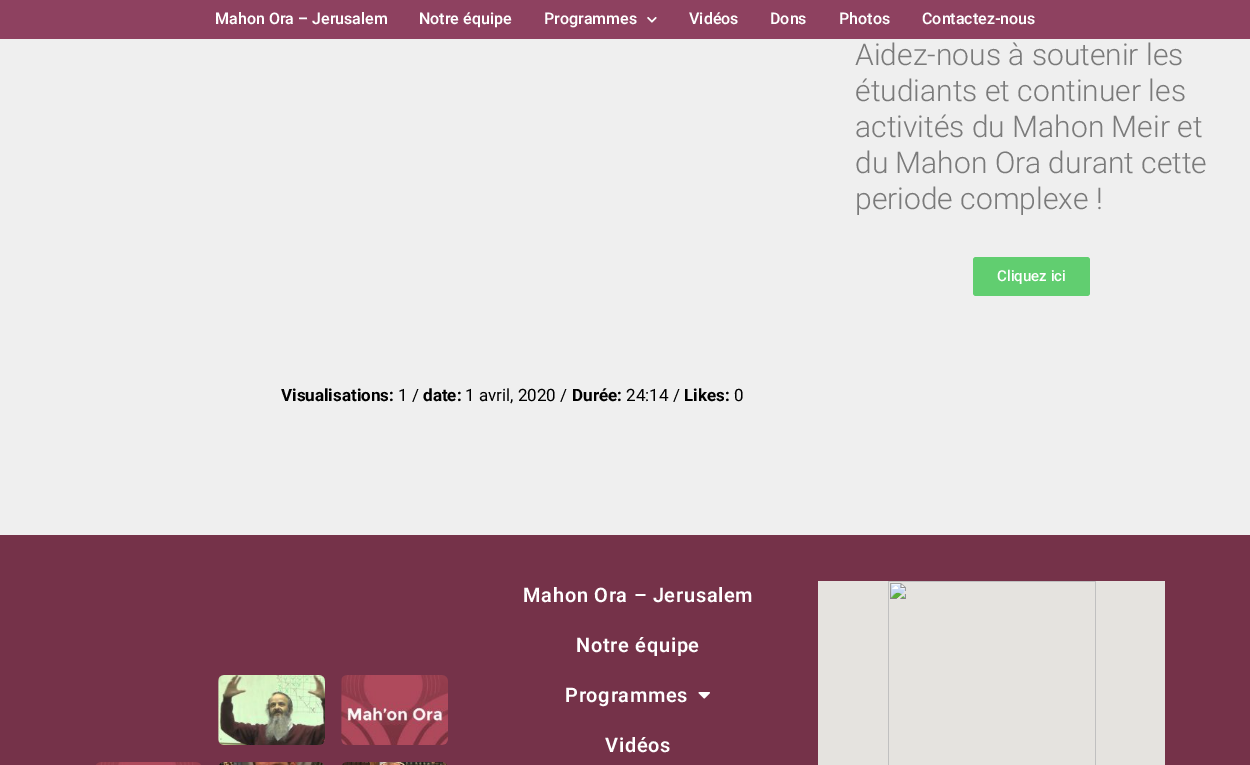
%!PS
<< /PageSize [1250 765] >> setpagedevice
/m/moveto load def
/f/fill load def
/C { dup -16 bitshift 255 div exch dup -8 bitshift 255 and 255 div exch 255 and 255 div setrgbcolor } def
/F { [ exch dup neg 0 0 3 -1 roll 0 0 ] selectfont } def
/T { moveto show } def
/R { rectfill } def
/Q { 5 dict begin { /r /h /w /y /x } { exch def } forall
  x r add y moveto x w add y 2 copy h add r arct x w add y h add x 1 index r arct
  x y h add x y r arct x y 2 copy exch w add exch r arct closepath end } def
/I { 5 dict begin { /h /w /y /x /name } { exch def } forall
  gsave x y translate w h scale
  w h 8 [w 0 0 h 0 0] name (r) file false 3 colorimage grestore end } def
0 765 translate 1 -1 scale
4 setmiterlimit
16#EFEFEF C
0 0 1250 765 R
16#8E4160 C
0 0 1250 39 R
/Heebo-SemiBold 16 F
16#FFFFFF C
(Mahon Ora – Jerusalem) 215 24 T
(Notre équipe) 419 24 T
(Programmes) 544 24 T
(1.rgb) 647 17 10 6 I
(Vidéos) 689 24 T
(Dons) 770 24 T
(Photos) 839 24 T
(Contactez-nous) 922 24 T
/Roboto-Light 30 F
16#7A7A7A C
(Aidez-nous à soutenir les) 855 65 T
(étudiants et continuer les) 855 101 T
(activités du Mahon Meir et) 855 137 T
(du Mahon Ora durant cette) 855 173 T
(periode complexe !) 855 209 T
16#61CE70 C
973 257 117 39 3 Q f
/Roboto-Medium 15 F
16#FFFFFF C
(Cliquez ici) 997 281 T
/Roboto-Bold 17 F
16#000000 C
(Visualisations:) 281 401 T
/Roboto-Regular 17 F
(1 /) 398 401 T
/Roboto-Bold 17 F
(date:) 423 401 T
/Roboto-Regular 17 F
(1 avril, 2020 /) 465 401 T
/Roboto-Bold 17 F
(Durée:) 572 401 T
/Roboto-Regular 17 F
(24:14 /) 626 401 T
/Roboto-Bold 17 F
(Likes:) 684 401 T
/Roboto-Regular 17 F
(0) 734 401 T
16#753249 C
0 535 1250 230 R
(2.rgb) 218 675 107 70 I
(3.rgb) 341 675 107 70 I
(4.rgb) 96 762 105 3 I
(5.rgb) 219 762 105 3 I
(6.rgb) 342 762 105 3 I
/Roboto-SemiBold 20 F
16#FFFFFF C
523 602 m .7 0 (Mahon Ora – Jerusalem) ashow
576 652 m .7 0 (Notre équipe) ashow
565 702 m .7 0 (Programmes) ashow
(7.rgb) 698 692 12 7 I
605 752 m .7 0 (Vidéos) ashow
(8.rgb) 818 581 347 184 I
showpage
